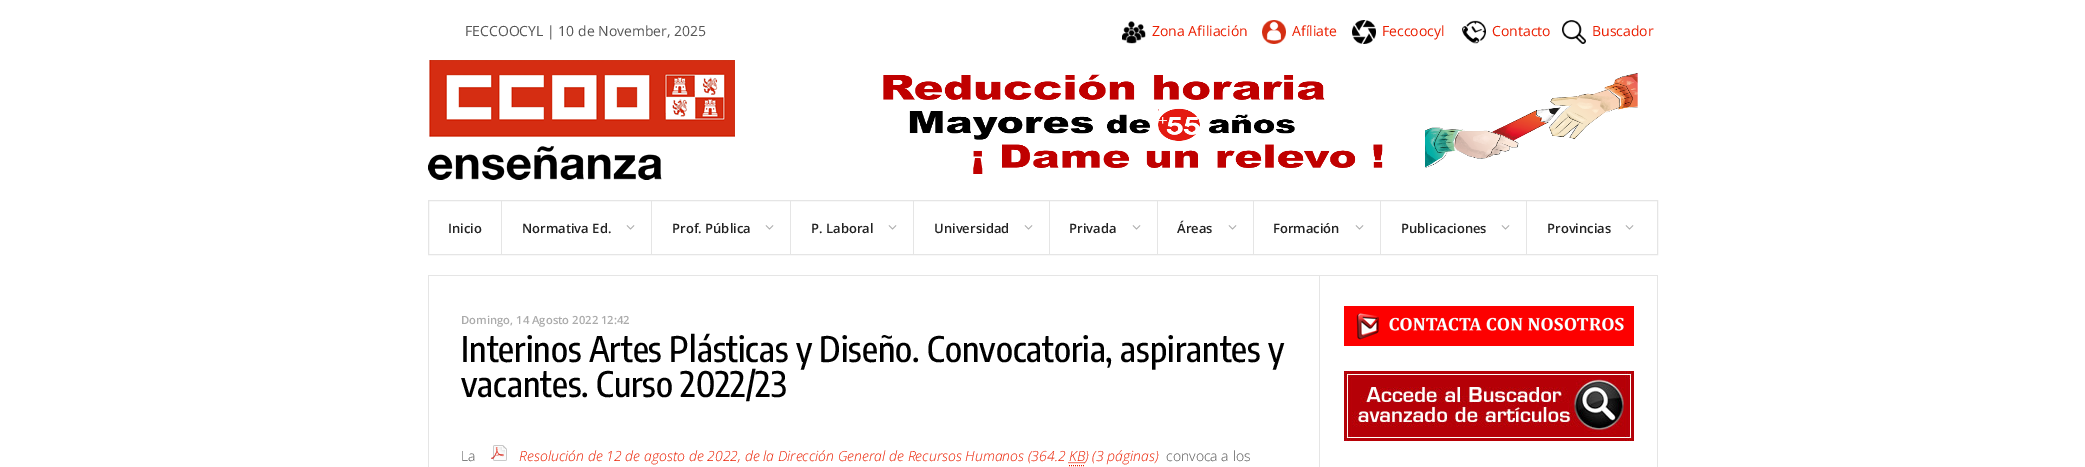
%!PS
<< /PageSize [2085 467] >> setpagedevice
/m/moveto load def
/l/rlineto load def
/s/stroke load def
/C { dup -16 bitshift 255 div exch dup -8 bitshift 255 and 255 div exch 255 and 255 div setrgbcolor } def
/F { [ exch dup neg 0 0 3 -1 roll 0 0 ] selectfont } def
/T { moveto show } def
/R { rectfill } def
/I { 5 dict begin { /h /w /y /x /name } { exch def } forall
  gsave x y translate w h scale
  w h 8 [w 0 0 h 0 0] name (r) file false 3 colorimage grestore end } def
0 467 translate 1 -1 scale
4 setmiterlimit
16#FFFFFF C
0 0 2085 467 R
/OpenSans-Regular 14 F
16#555555 C
(FECCOOCYL | 10 de November, 2025) 465 36 T
(1.rgb) 1122 21 24 23 I
16#EB1E00 C
(Zona Afiliación) 1152 36 T
(2.rgb) 1262 20 24 24 I
(Afíliate) 1292 36 T
(3.rgb) 1352 20 24 24 I
(Feccoocyl) 1382 36 T
(4.rgb) 1462 20 24 24 I
(Contacto) 1492 36 T
(5.rgb) 1562 20 24 24 I
(Buscador) 1592 36 T
(6.rgb) 428 60 307 120 I
(7.rgb) 883 73 755 101 I
16#E5E5E5 C
428.5 200.5 1229 54 rectstroke
501 201 1 54 R
/OpenSans-SemiBold 13 F
16#222222 C
(Inicio) 448 233 T
16#E5E5E5 C
651 201 1 54 R
16#222222 C
(Normativa Ed.) 522 233 T
(8.rgb) 626 225 9 5 I
16#E5E5E5 C
790 201 1 54 R
16#222222 C
(Prof. Pública) 672 233 T
(8.rgb) 765 225 9 5 I
16#E5E5E5 C
913 201 1 54 R
16#222222 C
(P. Laboral) 811 233 T
(8.rgb) 888 225 9 5 I
16#E5E5E5 C
1049 201 1 54 R
16#222222 C
(Universidad) 934 233 T
(8.rgb) 1024 225 9 5 I
16#E5E5E5 C
1157 201 1 54 R
16#222222 C
(Privada) 1069 233 T
(8.rgb) 1132 225 9 5 I
16#E5E5E5 C
1253 201 1 54 R
16#222222 C
(Áreas) 1177 233 T
(8.rgb) 1228 225 9 5 I
16#E5E5E5 C
1380 201 1 54 R
16#222222 C
(Formación) 1273 233 T
(8.rgb) 1355 225 9 5 I
16#E5E5E5 C
1526 201 1 54 R
16#222222 C
(Publicaciones) 1401 233 T
(8.rgb) 1501 225 9 5 I
(Provincias) 1547 233 T
(8.rgb) 1625 225 9 5 I
16#E5E5E5 C
1657 275 1 192 R
428 275 1 192 R
429 275 1228 1 R
/OpenSans-SemiBold 11.25 F
16#ABABAB C
(Domingo, 14 Agosto 2022 12:42) 461 324 T
/EncodeSansCondensed-Medium 35 F
16#000000 C
(Interinos Artes Plásticas y Diseño. Convocatoria, aspirantes y) 461 362 T
(vacantes. Curso 2022/23) 461 397 T
/OpenSans-Light 14 F
16#555555 C
(La) 461 461 T
(9.rgb) 491 445 16 16 I
/OpenSans-LightItalic 14 F
16#EB1E00 C
(Resolución de 12 de agosto de 2022, de la Dirección General de Recursos Humanos \(364.2 KB) 519 461 T
[1 1] 0 setdash
1069 465.5 m 16 0 l 1068.5 462.5 m 16.5 0 l s
(\) \(3 páginas\)) 1085 461 T
/OpenSans-Light 14 F
16#555555 C
(convoca a los) 1166 461 T
16#E5E5E5 C
1319 275 1 192 R
(10.rgb) 1344 306 290 40 I
(11.rgb) 1344 371 290 70 I
showpage
